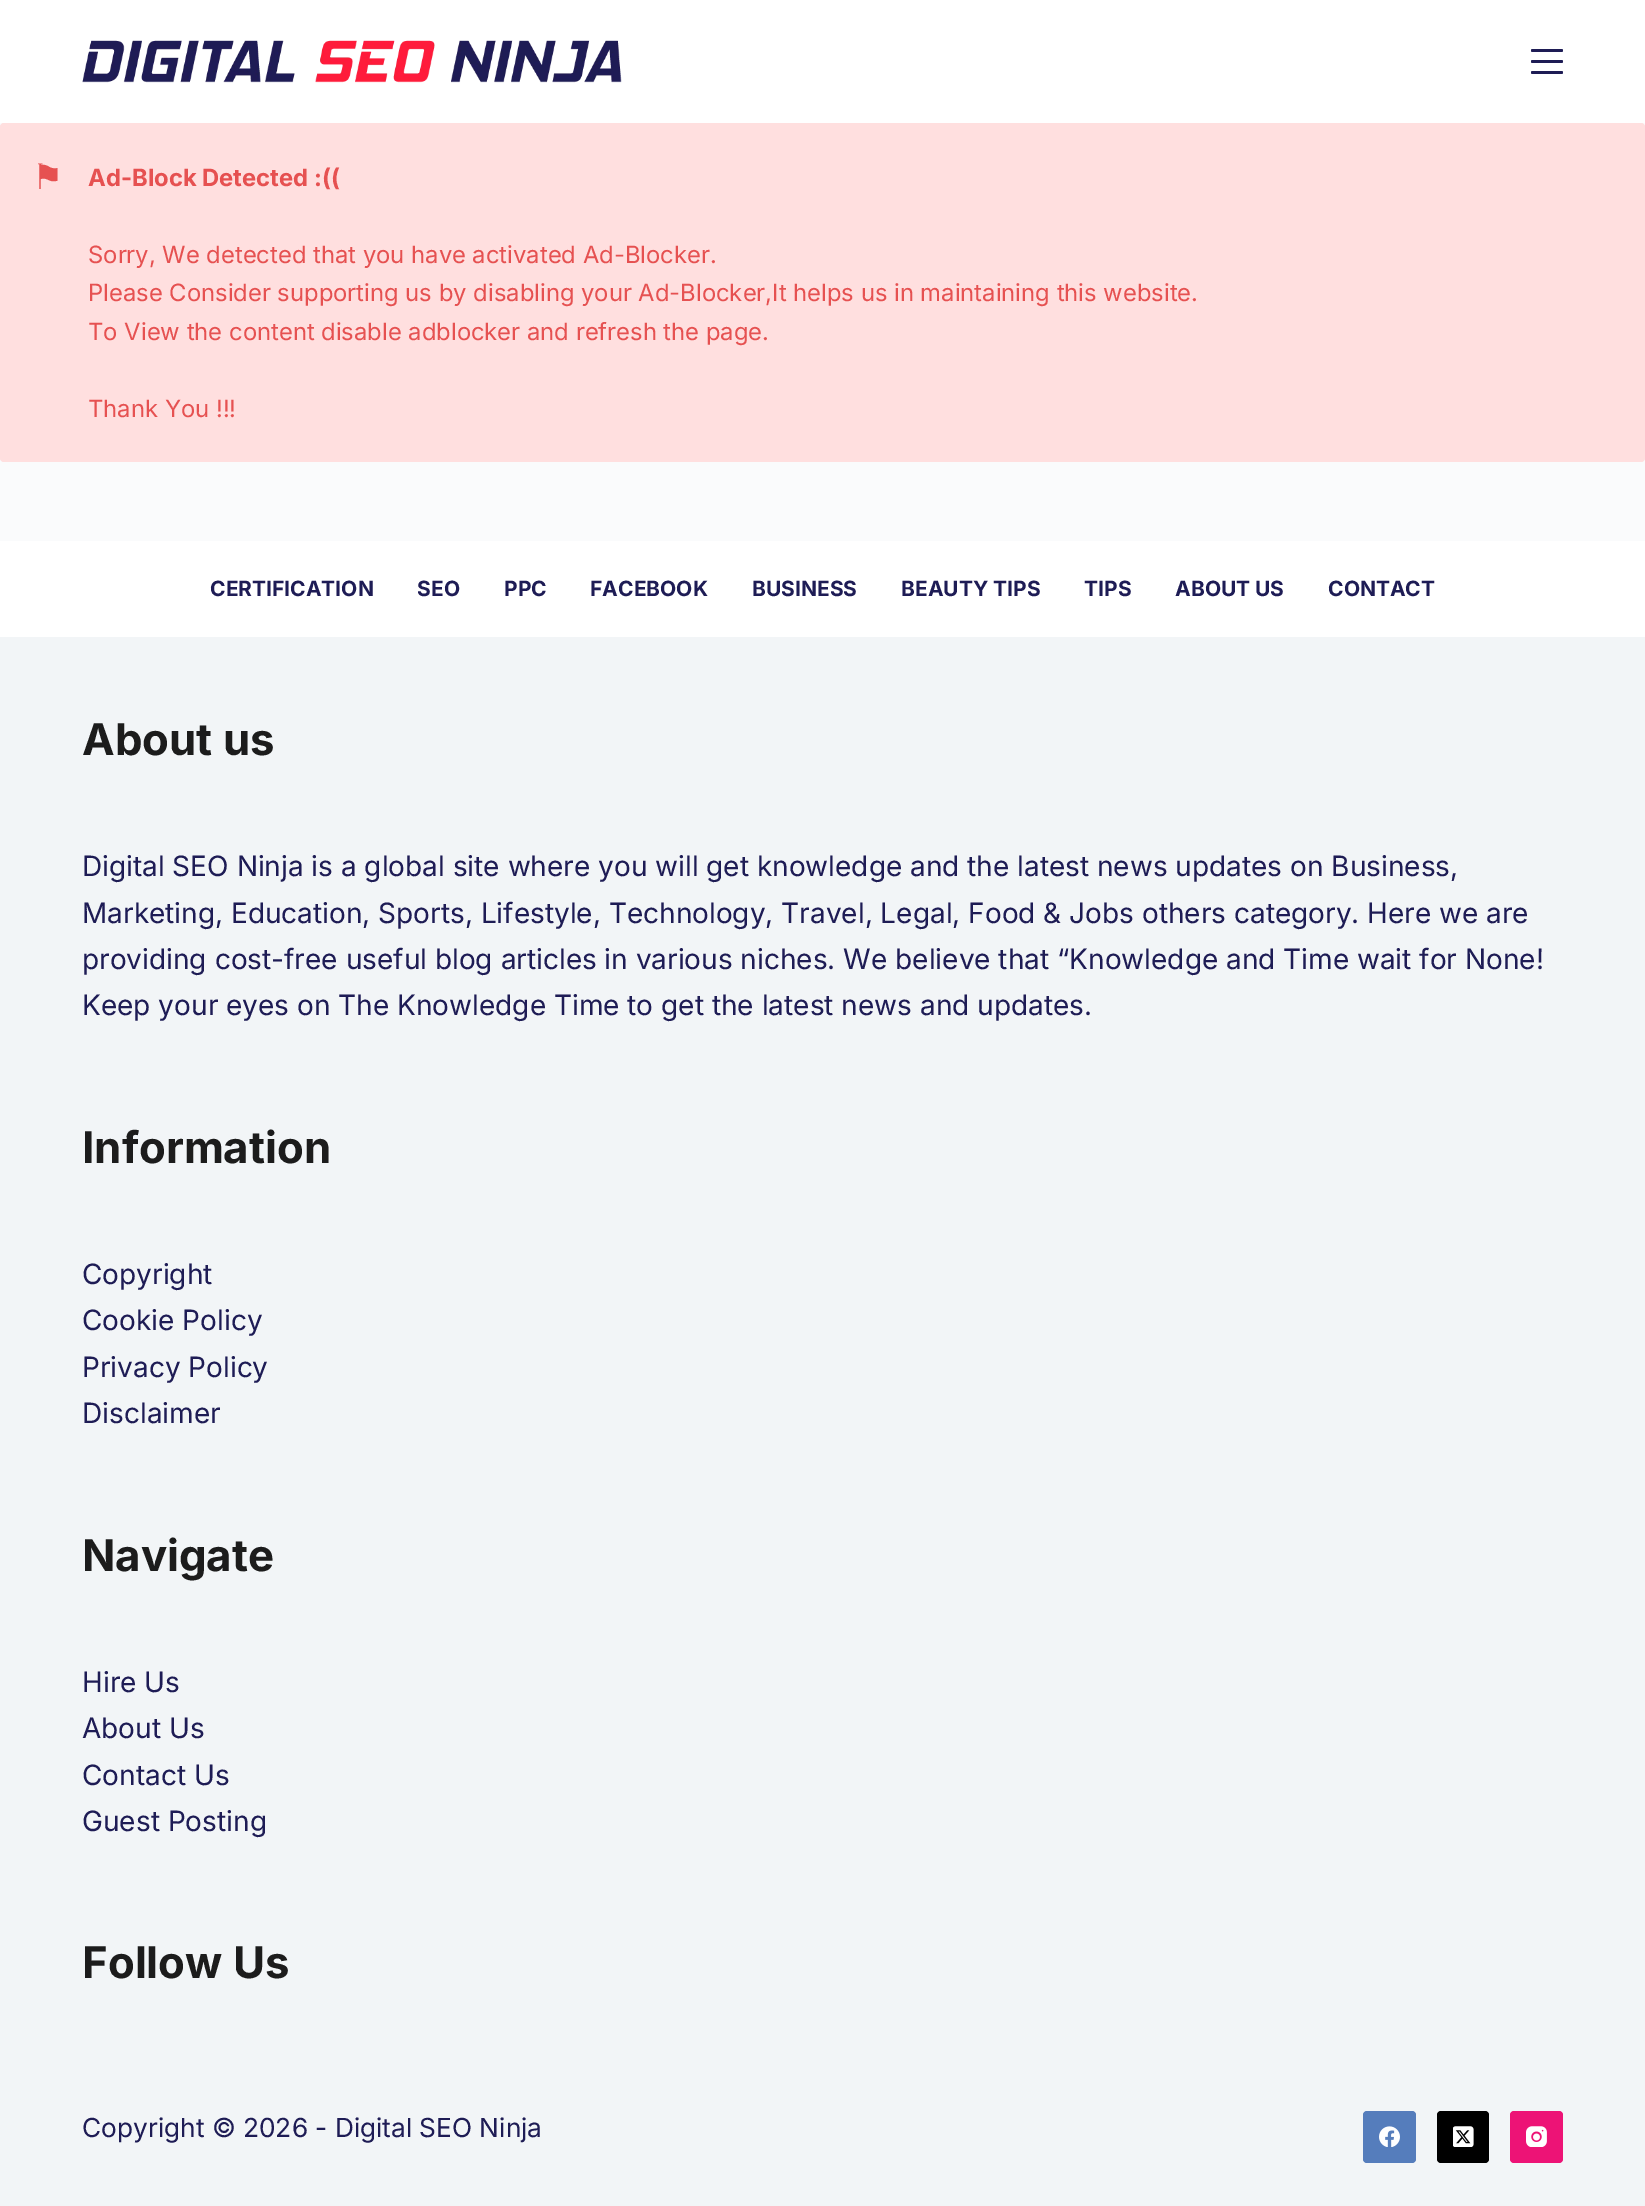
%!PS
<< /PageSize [1645 2206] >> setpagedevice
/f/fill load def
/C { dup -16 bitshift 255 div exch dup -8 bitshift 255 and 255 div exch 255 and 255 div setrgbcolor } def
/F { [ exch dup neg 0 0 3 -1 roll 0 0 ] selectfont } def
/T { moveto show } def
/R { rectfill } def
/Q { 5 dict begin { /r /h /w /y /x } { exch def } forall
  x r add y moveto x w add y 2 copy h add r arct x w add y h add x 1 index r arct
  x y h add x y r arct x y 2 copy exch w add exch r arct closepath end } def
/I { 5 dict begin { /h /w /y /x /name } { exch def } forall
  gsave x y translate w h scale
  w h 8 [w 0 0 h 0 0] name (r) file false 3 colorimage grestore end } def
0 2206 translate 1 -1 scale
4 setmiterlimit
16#FAFBFC C
0 0 1645 2206 R
16#FFFFFF C
0 0 1645 123 R
(1.rgb) 82 40 540 43 I
16#1E1C55 C
1531 49 32 3 1.5 Q f
1531 60 32 3 1.5 Q f
1531 71 32 3 1.5 Q f
16#FFDFDF C
0 123 1645 339 4 Q f
/DejaVuSans-Regular 35 F
16#E65151 C
(⚑) 32 189 T
/Inter-Bold 23.8 F
(Ad-Block Detected :\(\() 88 186 T
/Inter-Regular 23.8 F
(Sorry, We detected that you have activated Ad-Blocker.) 88 263 T
(Please Consider supporting us by disabling your Ad-Blocker,It helps us in maintaining this website.) 88 301 T
(To View the content disable adblocker and refresh the page.) 88 340 T
(Thank You !!!) 88 417 T
16#F2F5F7 C
0 637 1645 1569 R
16#FFFFFF C
0 541 1645 96 R
/Inter-Bold 21 F
16#1E1C55 C
(CERTIFICATION) 210 596 T
(SEO) 417 596 T
(PPC) 504 596 T
(FACEBOOK) 590 596 T
(BUSINESS) 752 596 T
(BEAUTY TIPS) 901 596 T
(TIPS) 1084 596 T
(ABOUT US) 1175 596 T
(CONTACT) 1328 596 T
/Inter-Bold 43.75 F
16#1C1C1C C
(About us) 82 755 T
/Inter-Regular 28 F
16#1E1C55 C
(Digital SEO Ninja is a global site where you will get knowledge and the latest news updates on Business,) 82 876 T
(Marketing, Education, Sports, Lifestyle, Technology, Travel, Legal, Food & Jobs others category. Here we are) 82 923 T
(providing cost-free useful blog articles in various niches. We believe that “Knowledge and Time wait for None!) 82 969 T
(Keep your eyes on The Knowledge Time to get the latest news and updates.) 82 1015 T
/Inter-Bold 43.75 F
16#1C1C1C C
(Information) 82 1163 T
/Inter-Regular 28 F
16#1E1C55 C
(Copyright) 82 1284 T
(Cookie Policy) 82 1330 T
(Privacy Policy) 82 1377 T
(Disclaimer) 82 1423 T
/Inter-Bold 43.75 F
16#1C1C1C C
(Navigate) 82 1571 T
/Inter-Regular 28 F
16#1E1C55 C
(Hire Us) 82 1692 T
(About Us) 82 1738 T
(Contact Us) 82 1785 T
(Guest Posting) 82 1831 T
/Inter-Bold 43.75 F
16#1C1C1C C
(Follow Us) 82 1978 T
/Inter-Regular 26.25 F
16#1E1C55 C
(Copyright © 2026 - Digital SEO Ninja) 82 2137 T
16#557DBC C
1363 2111 53 52 4 Q f
(2.rgb) 1379 2126 21 21 I
16#000000 C
1437 2111 52 52 4 Q f
(3.rgb) 1453 2126 21 21 I
16#ED1376 C
1510 2111 53 52 4 Q f
(4.rgb) 1526 2126 21 21 I
showpage
